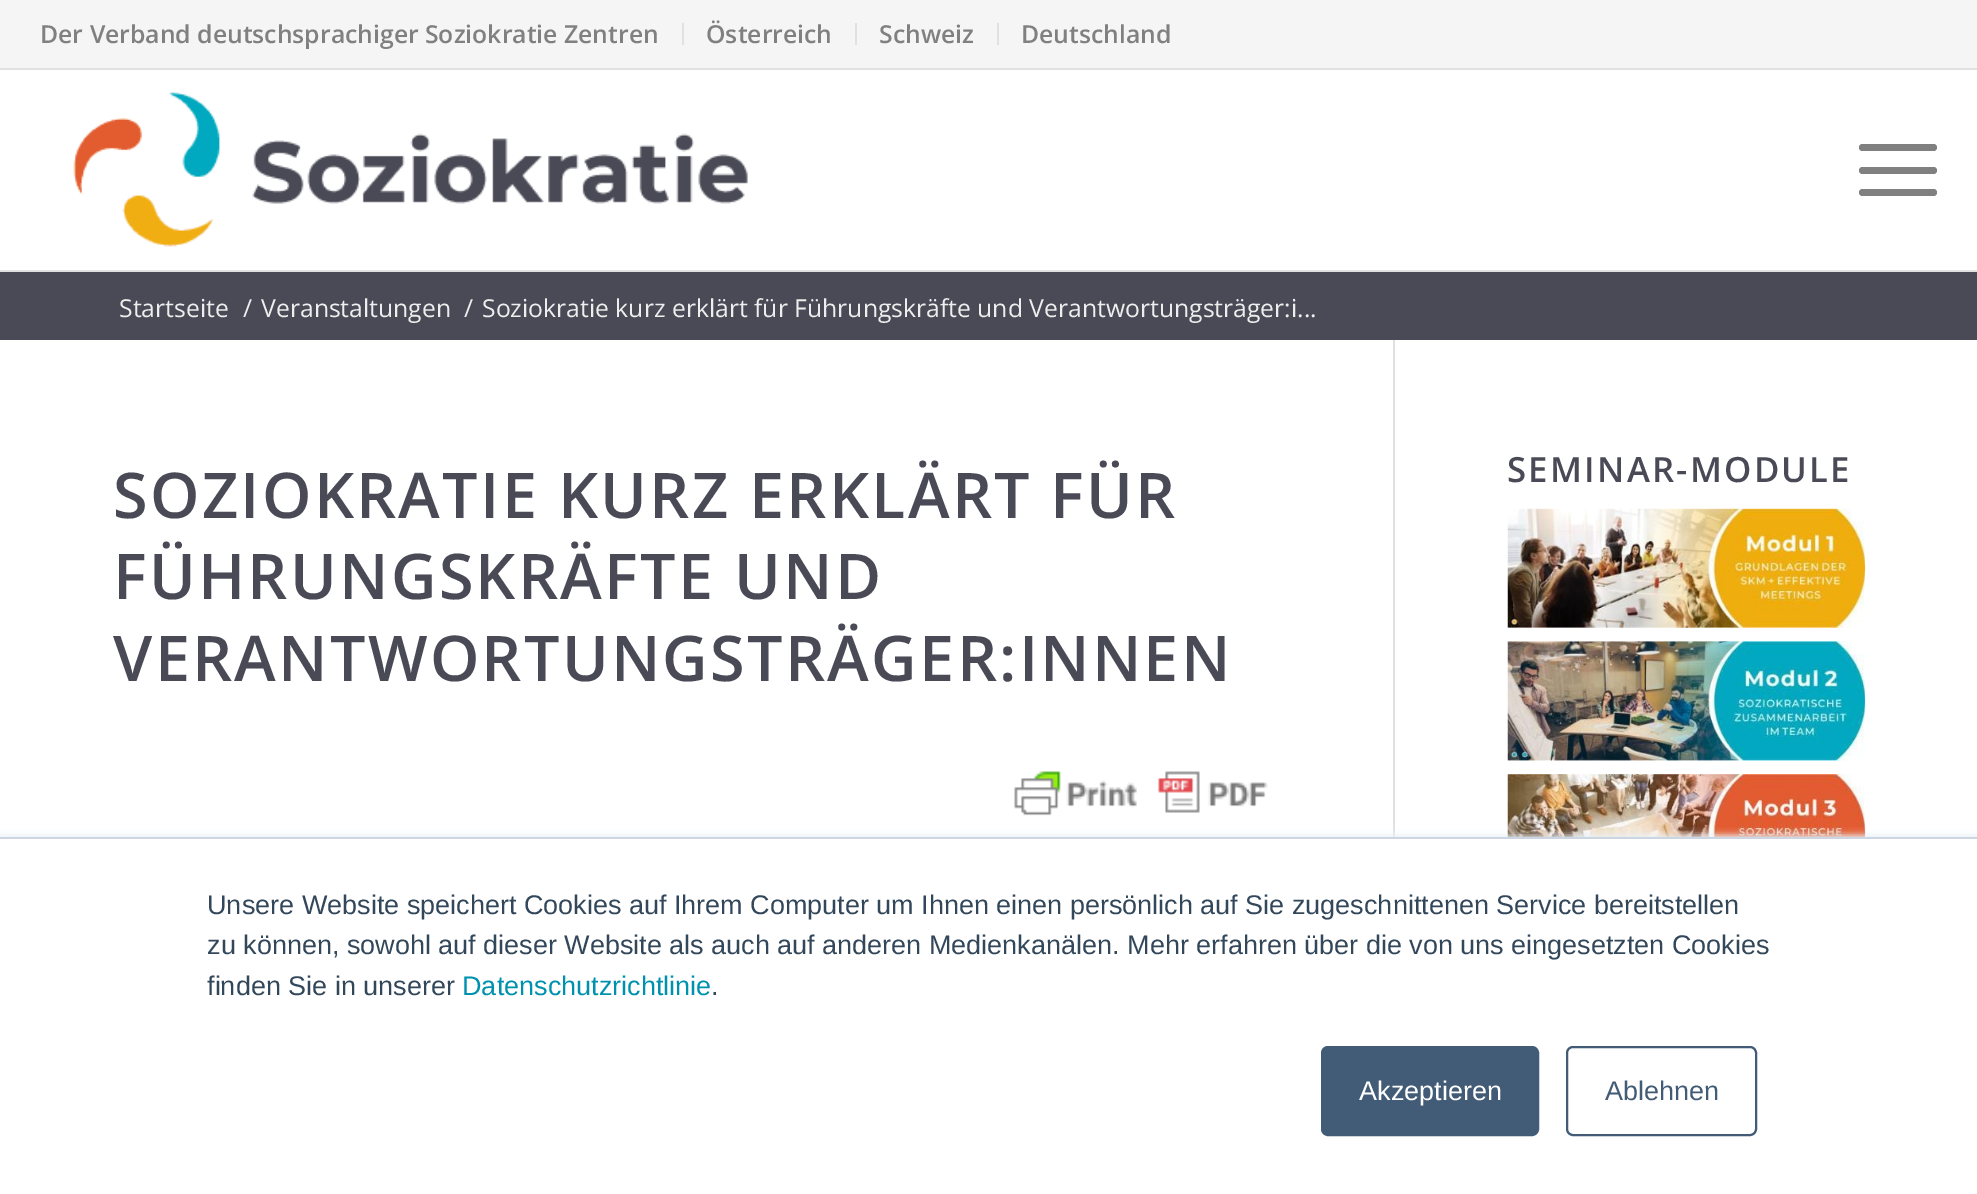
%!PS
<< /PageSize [1977 1194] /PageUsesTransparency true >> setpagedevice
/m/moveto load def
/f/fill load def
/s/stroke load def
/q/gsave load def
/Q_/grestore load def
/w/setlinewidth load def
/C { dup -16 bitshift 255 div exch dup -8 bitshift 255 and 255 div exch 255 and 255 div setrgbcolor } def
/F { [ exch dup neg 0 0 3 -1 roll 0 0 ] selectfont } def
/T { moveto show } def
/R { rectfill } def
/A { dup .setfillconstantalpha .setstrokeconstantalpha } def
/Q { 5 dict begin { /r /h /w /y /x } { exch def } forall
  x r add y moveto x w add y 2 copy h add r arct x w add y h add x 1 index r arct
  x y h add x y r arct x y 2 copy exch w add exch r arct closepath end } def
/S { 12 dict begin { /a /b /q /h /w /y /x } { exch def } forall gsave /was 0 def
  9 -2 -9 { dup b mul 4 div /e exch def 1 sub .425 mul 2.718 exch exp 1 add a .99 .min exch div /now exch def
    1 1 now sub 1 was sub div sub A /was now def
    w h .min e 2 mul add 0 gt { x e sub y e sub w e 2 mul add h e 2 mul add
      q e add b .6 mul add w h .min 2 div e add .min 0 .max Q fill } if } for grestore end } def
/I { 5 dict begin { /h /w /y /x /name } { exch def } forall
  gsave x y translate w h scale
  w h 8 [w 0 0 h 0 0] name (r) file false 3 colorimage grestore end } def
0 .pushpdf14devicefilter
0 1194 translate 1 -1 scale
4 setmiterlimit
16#FFFFFF C
0 0 1977 1194 R
16#F5F5F5 C
0 0 1977 68 R
16#E1E1E1 C
0 68 1977 2 R
682 23 2 22 R
/OpenSans-SemiBold 24.75 F
16#808080 C
(Der Verband deutschsprachiger Soziokratie Zentren) 40 43 T
16#E1E1E1 C
855 23 2 22 R
16#808080 C
(Österreich) 706 43 T
16#E1E1E1 C
997 23 2 22 R
16#808080 C
(Schweiz) 879 43 T
(Deutschland) 1021 43 T
16#E1E1E1 C
0 270 1977 2 R
(1.rgb) 73 92 675 155 I
16#808080 C
1859 167 78 7 3.5 Q f
1859 144 78 7 3.5 Q f
1859 189 78 7 3.5 Q f
16#494A56 C
0 272 1977 68 R
/OpenSans-Regular 24.75 F
16#EEEEEE C
(Startseite) 119 317 T
(/) 243 317 T
(Veranstaltungen) 261 317 T
(/) 464 317 T
(Soziokratie kurz erklärt für Führungskräfte und Verantwortungsträger:i...) 482 317 T
16#E1E1E1 C
1393 340 2 497 R
/OpenSans-SemiBold 63 F
16#494A56 C
113 518 m 2.25 0 (SOZIOKRATIE KURZ ERKLÄRT FÜR) ashow
113 599 m 2.25 0 (FÜHRUNGSKRÄFTE UND) ashow
113 681 m 2.25 0 (VERANTWORTUNGSTRÄGER:INNEN) ashow
(2.rgb) 1014 771 254 45 I
/OpenSans-SemiBold 34.75 F
1507 482 m 2.25 0 (SEMINAR-MODULE) ashow
(3.rgb) 1507 508 359 120 I
(4.rgb) 1507 641 359 120 I
(5.rgb) 1507 774 359 63 I
16#EAF0F6 C
0 835 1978 358 0 3.5 1 S
16#FFFFFF C
0 839 1977 355 R
16#CBD6E2 C
0 837 1977 2 R
/LiberationSans-Regular 27 F
16#33475B C
(Unsere Website speichert Cookies auf Ihrem Computer um Ihnen einen persönlich auf Sie zugeschnittenen Service bereitstellen) 207 914 T
(zu können, sowohl auf dieser Website als auch auf anderen Medienkanälen. Mehr erfahren über die von uns eingesetzten Cookies) 207 954 T
(finden Sie in unserer) 207 995 T
16#0091AE C
(Datenschutzrichtlinie) 462 995 T
16#33475B C
(.) 711 995 T
16#425B76 C
1322 1047 216 88 6 Q q f Q_
2 w
s
16#FFFFFF C
(Akzeptieren) 1359 1100 T
16#425B76 C
1567 1047 189 88 6 Q s
(Ablehnen) 1605 1100 T
.poppdf14devicefilter showpage
